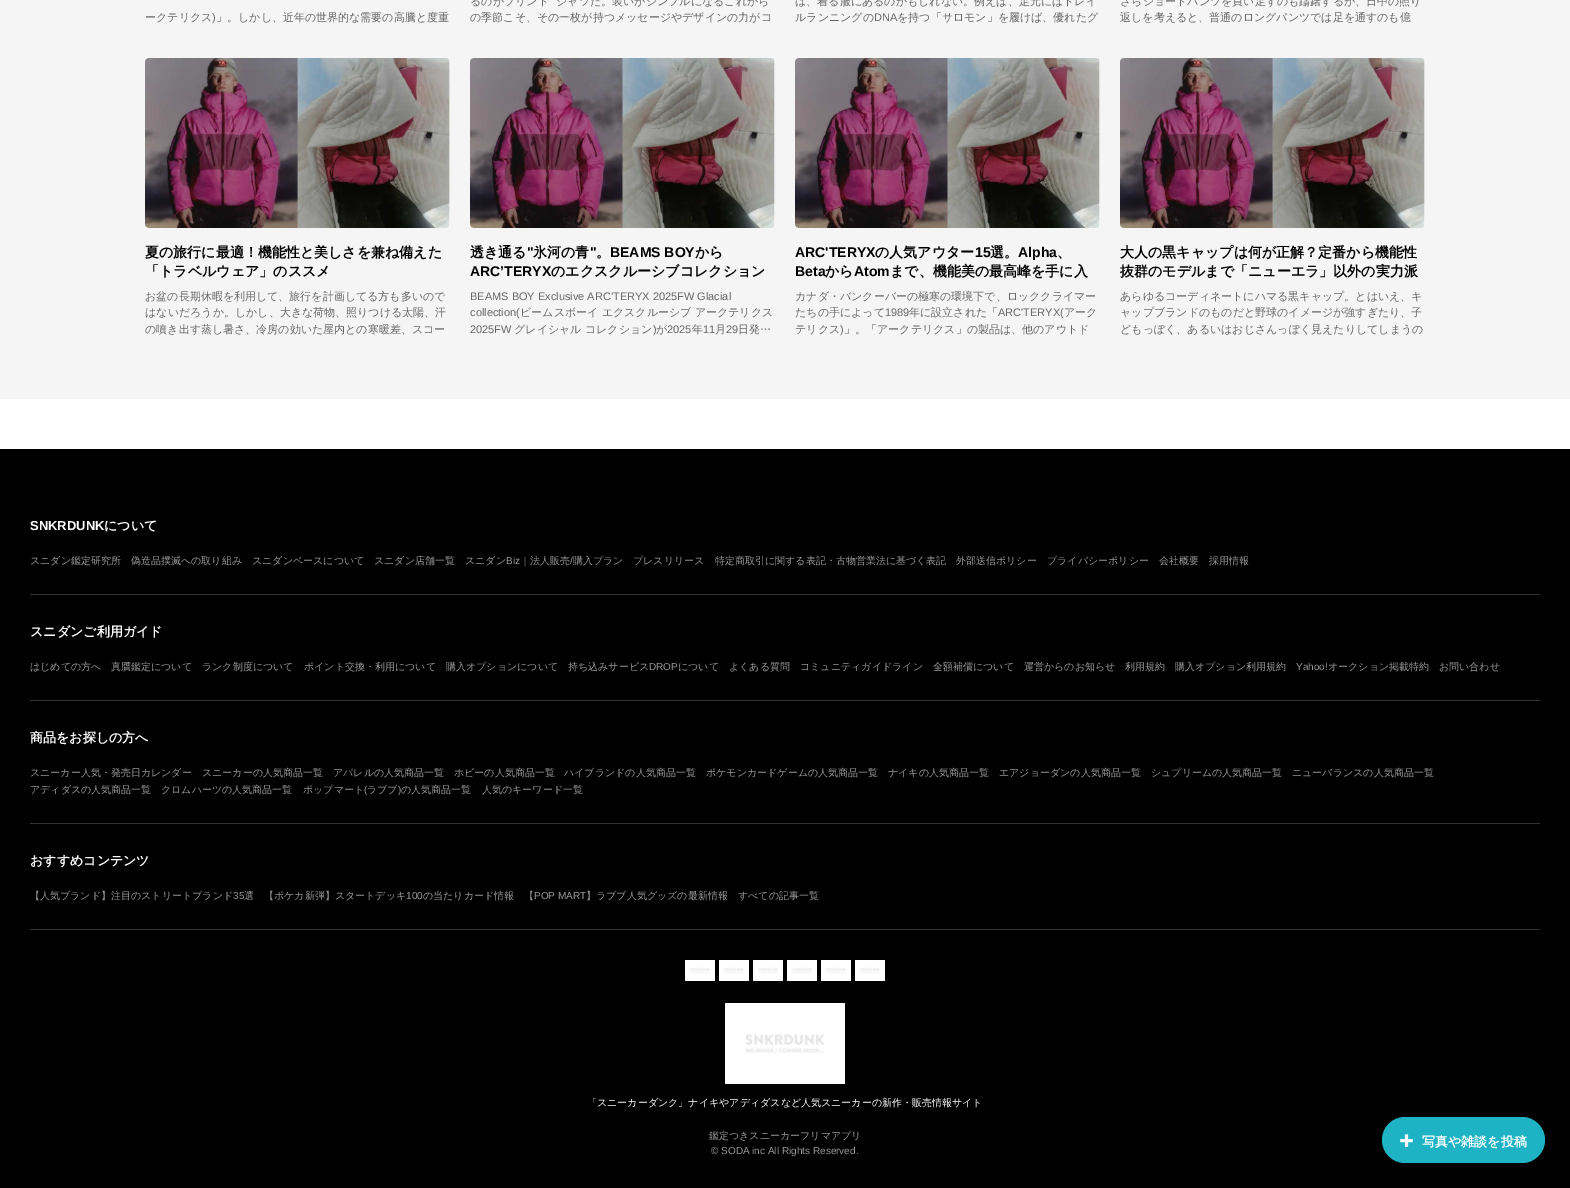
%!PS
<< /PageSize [1570 1188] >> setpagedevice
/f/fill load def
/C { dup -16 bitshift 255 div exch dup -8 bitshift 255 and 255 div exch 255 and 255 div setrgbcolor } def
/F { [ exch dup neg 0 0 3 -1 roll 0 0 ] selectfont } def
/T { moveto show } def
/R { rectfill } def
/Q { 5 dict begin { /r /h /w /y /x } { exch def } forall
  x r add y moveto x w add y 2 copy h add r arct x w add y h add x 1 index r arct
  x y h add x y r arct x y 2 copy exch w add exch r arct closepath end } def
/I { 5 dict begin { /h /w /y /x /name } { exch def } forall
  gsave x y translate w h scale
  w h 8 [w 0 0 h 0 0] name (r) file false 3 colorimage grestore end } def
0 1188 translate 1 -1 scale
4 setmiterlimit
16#FFFFFF C
0 0 1570 1188 R
16#F5F5F5 C
0 0 1570 399 R
/WenQuanYiZenHei-Medium 11 F
16#666666 C
(ークテリクス) 145 21 T
/LiberationSans-Regular 11 F
(\)) 212 21 T
/WenQuanYiZenHei-Medium 11 F
(」。しかし、近年の世界的な需要の高騰と度重) 216 21 T
(るのがプリント) 470 5 T
(シャツだ。装いがシンプルになるこれから) 556 5 T
(の季節こそ、その一枚が持つメッセージやデザインの力がコ) 470 21 T
(は、着る服にあるのかもしれない。例えば、足元にはトレイ) 795 5 T
(ルランニングの) 795 21 T
/LiberationSans-Regular 11 F
(DNA) 874 21 T
/WenQuanYiZenHei-Medium 11 F
(を持つ「サロモン」を履けば、優れたグ) 897 21 T
(さらショートパンツを買い足すのも躊躇するが、日中の照り) 1120 5 T
(返しを考えると、普通のロングパンツでは足を通すのも億) 1120 21 T
(1.rgb) 145 58 305 170 I
/WenQuanYiZenHei-Bold 14 F
16#000000 C
(夏の旅行に最適！機能性と美しさを兼ね備えた) 145 257 T
(「トラベルウェア」のススメ) 145 276 T
/WenQuanYiZenHei-Medium 11 F
16#666666 C
(お盆の長期休暇を利用して、旅行を計画してる方も多いので) 145 300 T
(はないだろうか。しかし、大きな荷物、照りつける太陽、汗) 145 316 T
(の噴き出す蒸し暑さ、冷房の効いた屋内との寒暖差、スコー) 145 333 T
(2.rgb) 470 58 305 170 I
/WenQuanYiZenHei-Bold 14 F
16#000000 C
(透き通る) 470 257 T
/LiberationSans-Bold 14 F
(") 527 257 T
/WenQuanYiZenHei-Bold 14 F
(氷河の青) 533 257 T
/LiberationSans-Bold 14 F
(") 590 257 T
/WenQuanYiZenHei-Bold 14 F
(。) 596 257 T
/LiberationSans-Bold 14 F
(BEAMS BOY) 610 257 T
/WenQuanYiZenHei-Bold 14 F
(から) 695 257 T
/LiberationSans-Bold 14 F
(ARC’TERYX) 470 276 T
/WenQuanYiZenHei-Bold 14 F
(のエクスクルーシブコレクション) 551 276 T
/LiberationSans-Regular 11 F
16#666666 C
(BEAMS BOY Exclusive ARC’TERYX 2025FW Glacial) 470 300 T
(collection\() 470 316 T
/WenQuanYiZenHei-Medium 11 F
(ビームスボーイ エクスクルーシブ アークテリクス) 520 316 T
/LiberationSans-Regular 11 F
(2025FW) 470 333 T
/WenQuanYiZenHei-Medium 11 F
(グレイシャル コレクション) 514 333 T
/LiberationSans-Regular 11 F
(\)) 653 333 T
/WenQuanYiZenHei-Medium 11 F
(が) 656 333 T
/LiberationSans-Regular 11 F
(2025) 667 333 T
/WenQuanYiZenHei-Medium 11 F
(年) 692 333 T
/LiberationSans-Regular 11 F
(11) 703 333 T
/WenQuanYiZenHei-Medium 11 F
(月) 715 333 T
/LiberationSans-Regular 11 F
(29) 726 333 T
/WenQuanYiZenHei-Medium 11 F
(日発…) 738 333 T
(3.rgb) 795 58 305 170 I
/LiberationSans-Bold 14 F
16#000000 C
(ARC'TERYX) 795 257 T
/WenQuanYiZenHei-Bold 14 F
(の人気アウター) 875 257 T
/LiberationSans-Bold 14 F
(15) 975 257 T
/WenQuanYiZenHei-Bold 14 F
(選。) 990 257 T
/LiberationSans-Bold 14 F
(Alpha) 1018 257 T
/WenQuanYiZenHei-Bold 14 F
(、) 1057 257 T
/LiberationSans-Bold 14 F
(Beta) 795 276 T
/WenQuanYiZenHei-Bold 14 F
(から) 825 276 T
/LiberationSans-Bold 14 F
(Atom) 854 276 T
/WenQuanYiZenHei-Bold 14 F
(まで、機能美の最高峰を手に入) 890 276 T
/WenQuanYiZenHei-Medium 11 F
16#666666 C
(カナダ・バンクーバーの極寒の環境下で、ロッククライマー) 795 300 T
(たちの手によって) 795 316 T
/LiberationSans-Regular 11 F
(1989) 885 316 T
/WenQuanYiZenHei-Medium 11 F
(年に設立された「) 909 316 T
/LiberationSans-Regular 11 F
(ARC'TERYX\() 998 316 T
/WenQuanYiZenHei-Medium 11 F
(アーク) 1064 316 T
(テリクス) 795 333 T
/LiberationSans-Regular 11 F
(\)) 840 333 T
/WenQuanYiZenHei-Medium 11 F
(」。「アークテリクス」の製品は、他のアウトド) 844 333 T
(4.rgb) 1120 58 305 170 I
/WenQuanYiZenHei-Bold 14 F
16#000000 C
(大人の黒キャップは何が正解？定番から機能性) 1120 257 T
(抜群のモデルまで「ニューエラ」以外の実力派) 1120 276 T
/WenQuanYiZenHei-Medium 11 F
16#666666 C
(あらゆるコーディネートにハマる黒キャップ。とはいえ、キ) 1120 300 T
(ャップブランドのものだと野球のイメージが強すぎたり、子) 1120 316 T
(どもっぽく、あるいはおじさんっぽく見えたりしてしまうの) 1120 333 T
16#000000 C
0 449 1570 739 R
16#1EB2C5 C
1382 1117 163 46 23 Q f
(5.rgb) 1400 1134 13 13 I
/WenQuanYiZenHei-Bold 13 F
16#FFFFFF C
(写真や雑談を投稿) 1422 1146 T
16#333333 C
30 594 1510 1 R
/LiberationSans-Bold 13 F
16#FFFFFF C
(SNKRDUNK) 30 530 T
/WenQuanYiZenHei-Bold 13 F
(について) 104 530 T
/WenQuanYiZenHei-Medium 10 F
16#999999 C
(スニダン鑑定研究所) 30 564 T
(偽造品撲滅への取り組み) 131 564 T
(スニダンベースについて) 252 564 T
(スニダン店舗一覧) 374 564 T
(スニダン) 465 564 T
/LiberationSans-Regular 10 F
(Biz) 506 564 T
/WenQuanYiZenHei-Medium 10 F
(｜法人販売) 520 564 T
/LiberationSans-Regular 10 F
(/) 570 564 T
/WenQuanYiZenHei-Medium 10 F
(購入プラン) 573 564 T
(プレスリリース) 633 564 T
(特定商取引に関する表記・古物営業法に基づく表記) 715 564 T
(外部送信ポリシー) 956 564 T
(プライバシーポリシー) 1047 564 T
(会社概要) 1159 564 T
(採用情報) 1209 564 T
16#333333 C
30 700 1510 1 R
/WenQuanYiZenHei-Bold 13 F
16#FFFFFF C
(スニダンご利用ガイド) 30 636 T
/WenQuanYiZenHei-Medium 10 F
16#999999 C
(はじめての方へ) 30 670 T
(真贋鑑定について) 111 670 T
(ランク制度について) 202 670 T
(ポイント交換・利用について) 304 670 T
(購入オプションについて) 446 670 T
(持ち込みサービス) 568 670 T
/LiberationSans-Regular 10 F
(DROP) 649 670 T
/WenQuanYiZenHei-Medium 10 F
(について) 678 670 T
(よくある質問) 729 670 T
(コミュニティガイドライン) 800 670 T
(全額補償について) 933 670 T
(運営からのお知らせ) 1024 670 T
(利用規約) 1125 670 T
(購入オプション利用規約) 1175 670 T
/LiberationSans-Regular 10 F
(Yahoo!) 1296 670 T
/WenQuanYiZenHei-Medium 10 F
(オークション掲載特約) 1328 670 T
(お問い合わせ) 1439 670 T
16#333333 C
30 823 1510 1 R
/WenQuanYiZenHei-Bold 13 F
16#FFFFFF C
(商品をお探しの方へ) 30 742 T
/WenQuanYiZenHei-Medium 10 F
16#999999 C
(スニーカー人気・発売日カレンダー) 30 776 T
(スニーカーの人気商品一覧) 202 776 T
(アパレルの人気商品一覧) 333 776 T
(ホビーの人気商品一覧) 454 776 T
(ハイブランドの人気商品一覧) 564 776 T
(ポケモンカードゲームの人気商品一覧) 706 776 T
(ナイキの人気商品一覧) 888 776 T
(エアジョーダンの人気商品一覧) 999 776 T
(シュプリームの人気商品一覧) 1151 776 T
(ニューバランスの人気商品一覧) 1292 776 T
(アディダスの人気商品一覧) 30 793 T
(クロムハーツの人気商品一覧) 161 793 T
(ポップマート) 303 793 T
/LiberationSans-Regular 10 F
(\() 364 793 T
/WenQuanYiZenHei-Medium 10 F
(ラブブ) 367 793 T
/LiberationSans-Regular 10 F
(\)) 398 793 T
/WenQuanYiZenHei-Medium 10 F
(の人気商品一覧) 401 793 T
(人気のキーワード一覧) 482 793 T
16#333333 C
30 929 1510 1 R
/WenQuanYiZenHei-Bold 13 F
16#FFFFFF C
(おすすめコンテンツ) 30 865 T
/WenQuanYiZenHei-Medium 10 F
16#999999 C
(【人気ブランド】注目のストリートブランド) 30 899 T
/LiberationSans-Regular 10 F
(35) 233 899 T
/WenQuanYiZenHei-Medium 10 F
(選) 244 899 T
(【ポケカ新弾】スタートデッキ) 264 899 T
/LiberationSans-Regular 10 F
(100) 406 899 T
/WenQuanYiZenHei-Medium 10 F
(の当たりカード情報) 423 899 T
(【) 524 899 T
/LiberationSans-Regular 10 F
(POP MART) 534 899 T
/WenQuanYiZenHei-Medium 10 F
(】ラブブ人気グッズの最新情報) 586 899 T
(すべての記事一覧) 738 899 T
(6.rgb) 685 960 30 21 I
(6.rgb) 719 960 30 21 I
(6.rgb) 753 960 30 21 I
(6.rgb) 787 960 30 21 I
(6.rgb) 821 960 30 21 I
(6.rgb) 855 960 30 21 I
(7.rgb) 725 1003 120 81 I
16#FFFFFF C
(「スニーカーダンク」ナイキやアディダスなど人気スニーカーの新作・販売情報サイト) 587 1106 T
16#999999 C
(鑑定つきスニーカーフリマアプリ) 709 1139 T
/LiberationSans-Regular 10 F
(© SODA inc All Rights Reserved.) 711 1154 T
showpage
